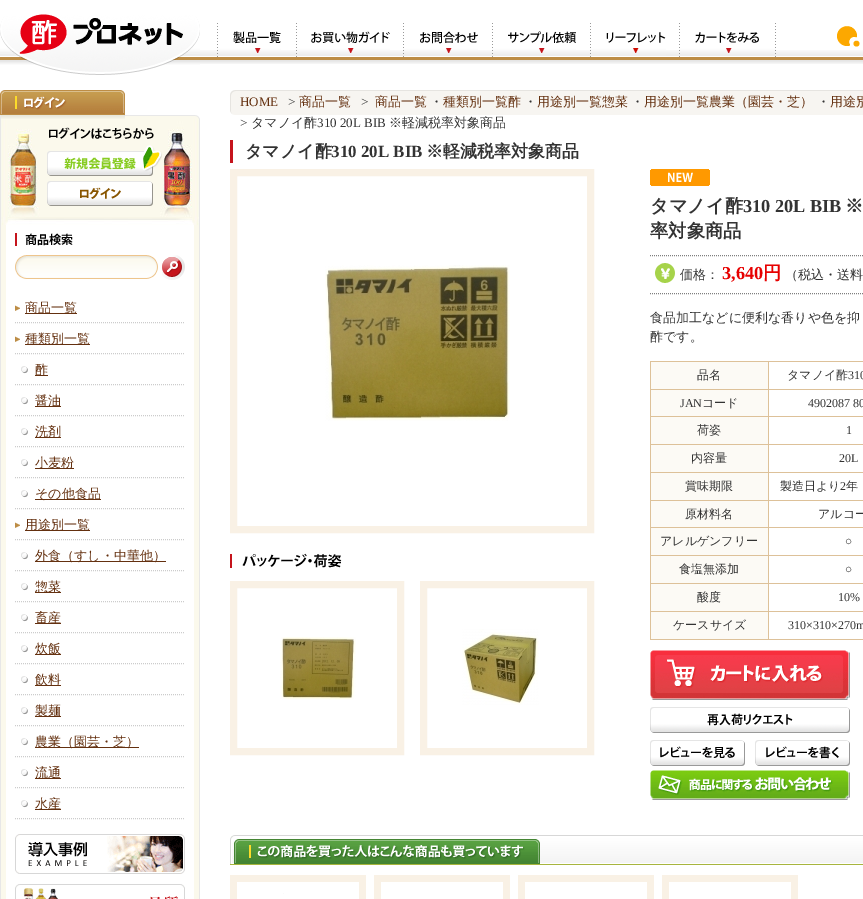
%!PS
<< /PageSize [863 899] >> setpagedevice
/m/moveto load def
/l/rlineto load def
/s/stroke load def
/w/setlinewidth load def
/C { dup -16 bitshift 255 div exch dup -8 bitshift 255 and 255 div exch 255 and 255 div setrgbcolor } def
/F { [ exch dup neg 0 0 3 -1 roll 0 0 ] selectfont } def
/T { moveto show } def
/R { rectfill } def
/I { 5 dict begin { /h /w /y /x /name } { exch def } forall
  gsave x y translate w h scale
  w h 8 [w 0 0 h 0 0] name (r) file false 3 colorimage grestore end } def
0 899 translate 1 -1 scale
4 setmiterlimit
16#FFFFFF C
0 0 863 899 R
(1.rgb) 200 50 663 14 I
(2.rgb) 0 14 200 46 I
(3.rgb) 217 23 64 34 I
(4.rgb) 296 23 94 34 I
(5.rgb) 403 23 75 34 I
(6.rgb) 492 23 84 34 I
(7.rgb) 590 23 76 34 I
(8.rgb) 679 23 97 34 I
(9.rgb) 837 26 23 21 I
(10.rgb) 0 119 200 780 I
(11.rgb) 1 119 198 106 I
(12.rgb) 0 60 200 59 I
(13.rgb) 49 127 105 12 I
(14.rgb) 37 145 126 31 I
(15.rgb) 37 181 126 25 I
(16.rgb) 15 233 58 13 I
(17.rgb) 15 255 143 24 I
(18.rgb) 162 255 23 25 I
16#CCCCCC C
[1 1] 0 setdash
15 322.5 m 170 0 l s
(19.rgb) 15 305 5 6 I
16#64300F C
25 313 52 1 R
/WenQuanYiZenHei-Medium 13 F
(商品一覧) 25 312 T
16#CCCCCC C
15 353.5 m 170 0 l s
(19.rgb) 15 336 5 6 I
16#64300F C
25 344 65 1 R
(種類別一覧) 25 343 T
16#CCCCCC C
15 384.5 m 170 0 l s
(20.rgb) 21 366 7 8 I
16#64300F C
35 375 13 1 R
(酢) 35 374 T
16#CCCCCC C
15 415.5 m 170 0 l s
(20.rgb) 21 397 7 8 I
16#64300F C
35 406 26 1 R
(醤油) 35 405 T
16#CCCCCC C
15 446.5 m 170 0 l s
(20.rgb) 21 428 7 8 I
16#64300F C
35 437 26 1 R
(洗剤) 35 436 T
16#CCCCCC C
15 477.5 m 170 0 l s
(20.rgb) 21 459 7 8 I
16#64300F C
35 468 39 1 R
(小麦粉) 35 467 T
16#CCCCCC C
15 508.5 m 170 0 l s
(20.rgb) 21 490 7 8 I
16#64300F C
35 499 66 1 R
(その他食品) 35 498 T
16#CCCCCC C
15 539.5 m 170 0 l s
(19.rgb) 15 522 5 6 I
16#64300F C
25 530 65 1 R
(用途別一覧) 25 529 T
16#CCCCCC C
15 570.5 m 170 0 l s
(20.rgb) 21 552 7 8 I
16#64300F C
35 561 131 1 R
(外食（すし・中華他）) 35 560 T
16#CCCCCC C
15 601.5 m 170 0 l s
(20.rgb) 21 583 7 8 I
16#64300F C
35 592 26 1 R
(惣菜) 35 591 T
16#CCCCCC C
15 632.5 m 170 0 l s
(20.rgb) 21 614 7 8 I
16#64300F C
35 623 26 1 R
(畜産) 35 622 T
16#CCCCCC C
15 663.5 m 170 0 l s
(20.rgb) 21 645 7 8 I
16#64300F C
35 654 26 1 R
(炊飯) 35 653 T
16#CCCCCC C
15 694.5 m 170 0 l s
(20.rgb) 21 676 7 8 I
16#64300F C
35 685 26 1 R
(飲料) 35 684 T
16#CCCCCC C
15 725.5 m 170 0 l s
(20.rgb) 21 707 7 8 I
16#64300F C
35 716 26 1 R
(製麺) 35 715 T
16#CCCCCC C
15 756.5 m 170 0 l s
(20.rgb) 21 738 7 8 I
16#64300F C
35 747 104 1 R
(農業（園芸・芝）) 35 746 T
16#CCCCCC C
15 787.5 m 170 0 l s
(20.rgb) 21 769 7 8 I
16#64300F C
35 778 26 1 R
(流通) 35 777 T
16#CCCCCC C
15 818.5 m 170 0 l s
(20.rgb) 21 800 7 8 I
16#64300F C
35 809 26 1 R
(水産) 35 808 T
(21.rgb) 15 834 170 40 I
(22.rgb) 15 884 170 15 I
(23.rgb) 230 90 633 25 I
/LiberationSerif-Regular 13 F
(HOME) 240 106 T
16#333333 C
(>) 288 106 T
/WenQuanYiZenHei-Medium 13 F
16#64300F C
(商品一覧) 299 106 T
/LiberationSerif-Regular 13 F
16#333333 C
(>) 361 106 T
/WenQuanYiZenHei-Medium 13 F
16#64300F C
(商品一覧) 375 106 T
16#333333 C
(・) 430 106 T
16#64300F C
(種類別一覧酢) 443 106 T
16#333333 C
(・) 524 106 T
16#64300F C
(用途別一覧惣菜) 537 106 T
16#333333 C
(・) 631 106 T
16#64300F C
(用途別一覧農業（園芸・芝）) 644 106 T
16#333333 C
(・) 817 106 T
16#64300F C
(用途別) 830 106 T
/LiberationSerif-Regular 13 F
16#333333 C
(>) 240 127 T
/WenQuanYiZenHei-Medium 13 F
(タマノイ酢) 251 127 T
/LiberationSerif-Regular 13 F
(310 20L BIB) 317 127 T
/WenQuanYiZenHei-Medium 13 F
(※軽減税率対象商品) 389 127 T
16#C5141C C
230 140 3 23 R
/WenQuanYiZenHei-Bold 17 F
16#333333 C
(タマノイ酢) 245 157 T
/LiberationSerif-Bold 17 F
(310 20L BIB) 331 157 T
/WenQuanYiZenHei-Bold 17 F
(※軽減税率対象商品) 426 157 T
16#F9F1E5 C
7 w
[] 0 setdash
233.5 172.5 357 357 rectstroke
(24.rgb) 325 265 185 156 I
(25.rgb) 230 553 112 15 I
233.5 584.5 167 167 rectstroke
(26.rgb) 280 637 76 63 I
423.5 584.5 167 167 rectstroke
(27.rgb) 462 629 77 76 I
(28.rgb) 650 169 60 17 I
/WenQuanYiZenHei-Bold 18.25 F
16#333333 C
(タマノイ酢) 650 212 T
/LiberationSerif-Bold 18.25 F
(310 20L BIB) 743 212 T
/WenQuanYiZenHei-Bold 18.25 F
(※) 845 212 T
(率対象商品) 650 237 T
16#7F7F7F C
1 w
[1 1] 0 setdash
650 255.5 m 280 0 l s
650 293.5 m 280 0 l s
(29.rgb) 655 263 20 20 I
/WenQuanYiZenHei-Medium 13 F
16#333333 C
(価格：) 680 279 T
/LiberationSerif-Bold 18.25 F
16#E70000 C
(3,640) 722 279 T
/WenQuanYiZenHei-Bold 18.25 F
(円) 763 279 T
/WenQuanYiZenHei-Medium 13 F
16#333333 C
(（税込・送料) 785 279 T
(食品加工などに便利な香りや色を抑) 650 322 T
(酢です。) 650 341 T
16#DDC199 C
650 361 213 1 R
650 361 1 279 R
16#FCFAF5 C
651 362 117 27 R
16#DDC199 C
768 362 1 278 R
651 389 212 1 R
/WenQuanYiZenHei-Medium 12 F
16#333333 C
(品名) 697 379 T
(タマノイ酢) 787 379 T
/LiberationSerif-Regular 12 F
(310) 848 379 T
16#FCFAF5 C
651 390 117 26 R
16#DDC199 C
651 416 212 1 R
16#333333 C
(JAN) 680 407 T
/WenQuanYiZenHei-Medium 12 F
(コード) 702 407 T
/LiberationSerif-Regular 12 F
(4902087 80) 808 407 T
16#FCFAF5 C
651 417 117 27 R
16#DDC199 C
651 444 212 1 R
/WenQuanYiZenHei-Medium 12 F
16#333333 C
(荷姿) 697 434 T
/LiberationSerif-Regular 12 F
(1) 846 434 T
16#FCFAF5 C
651 445 117 27 R
16#DDC199 C
651 472 212 1 R
/WenQuanYiZenHei-Medium 12 F
16#333333 C
(内容量) 691 462 T
/LiberationSerif-Regular 12 F
(20L) 839 462 T
16#FCFAF5 C
651 473 117 27 R
16#DDC199 C
651 500 212 1 R
/WenQuanYiZenHei-Medium 12 F
16#333333 C
(賞味期限) 685 490 T
(製造日より) 780 490 T
/LiberationSerif-Regular 12 F
(2) 840 490 T
/WenQuanYiZenHei-Medium 12 F
(年) 846 490 T
16#FCFAF5 C
651 501 117 26 R
16#DDC199 C
651 527 212 1 R
16#333333 C
(原材料名) 685 518 T
(アルコー) 818 518 T
16#FCFAF5 C
651 528 117 27 R
16#DDC199 C
651 555 212 1 R
16#333333 C
(アレルゲンフリー) 660 545 T
/LiberationSerif-Regular 12 F
(○) 845 545 T
16#FCFAF5 C
651 556 117 27 R
16#DDC199 C
651 583 212 1 R
/WenQuanYiZenHei-Medium 12 F
16#333333 C
(食塩無添加) 679 573 T
/LiberationSerif-Regular 12 F
(○) 845 573 T
16#FCFAF5 C
651 584 117 27 R
16#DDC199 C
651 611 212 1 R
/WenQuanYiZenHei-Medium 12 F
16#333333 C
(酸度) 697 601 T
/LiberationSerif-Regular 12 F
(10%) 838 601 T
16#FCFAF5 C
651 612 117 27 R
16#DDC199 C
651 639 212 1 R
/WenQuanYiZenHei-Medium 12 F
16#333333 C
(ケースサイズ) 673 629 T
/LiberationSerif-Regular 12 F
(310×310×270m) 788 629 T
(30.rgb) 650 650 200 50 I
(31.rgb) 650 707 200 26 I
(32.rgb) 650 740 95 26 I
(33.rgb) 755 740 95 26 I
(34.rgb) 650 770 200 30 I
(35.rgb) 230 835 633 29 I
16#A7B53D C
230 864 633 1 R
(36.rgb) 231 836 309 28 I
(37.rgb) 230 882 136 17 I
16#F9F1E5 C
230 875 136 7 R
16#FAFAFA C
283 893 1 1 R
(37.rgb) 374 882 136 17 I
16#F9F1E5 C
374 875 136 7 R
(37.rgb) 518 882 136 17 I
518 875 136 7 R
(37.rgb) 662 882 136 17 I
662 875 136 7 R
showpage
